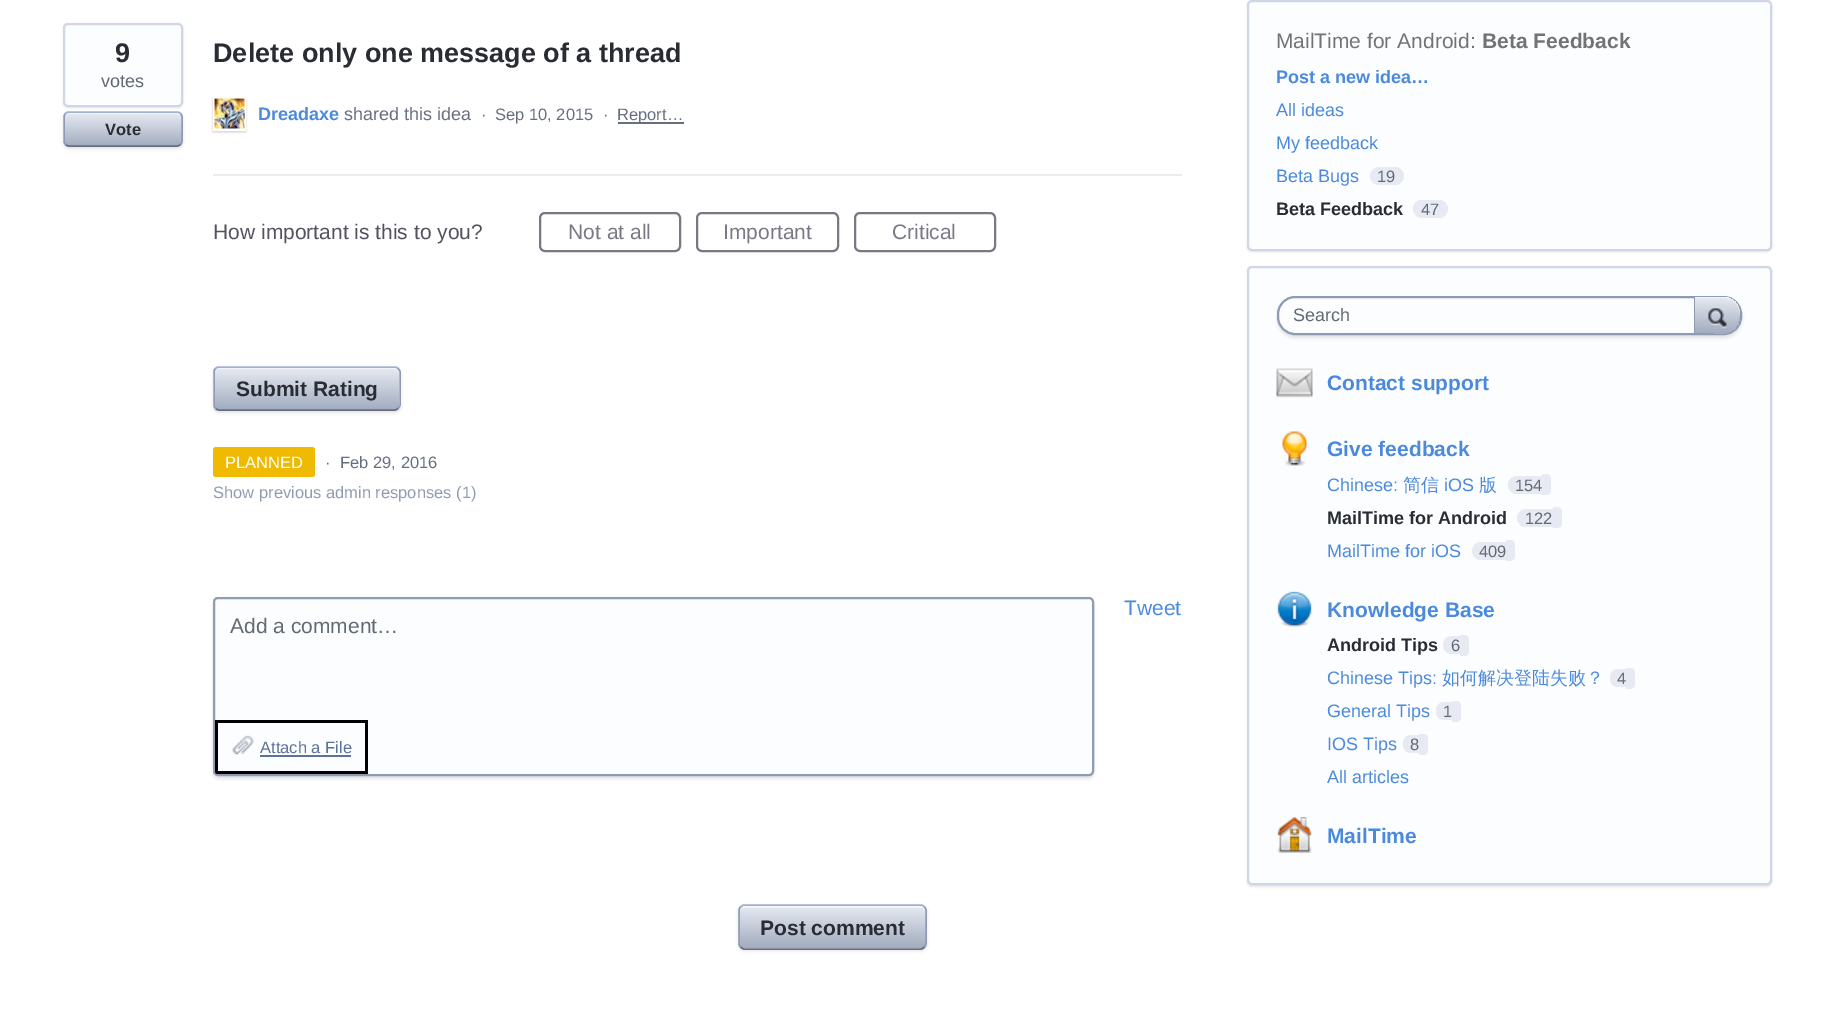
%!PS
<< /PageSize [1836 1024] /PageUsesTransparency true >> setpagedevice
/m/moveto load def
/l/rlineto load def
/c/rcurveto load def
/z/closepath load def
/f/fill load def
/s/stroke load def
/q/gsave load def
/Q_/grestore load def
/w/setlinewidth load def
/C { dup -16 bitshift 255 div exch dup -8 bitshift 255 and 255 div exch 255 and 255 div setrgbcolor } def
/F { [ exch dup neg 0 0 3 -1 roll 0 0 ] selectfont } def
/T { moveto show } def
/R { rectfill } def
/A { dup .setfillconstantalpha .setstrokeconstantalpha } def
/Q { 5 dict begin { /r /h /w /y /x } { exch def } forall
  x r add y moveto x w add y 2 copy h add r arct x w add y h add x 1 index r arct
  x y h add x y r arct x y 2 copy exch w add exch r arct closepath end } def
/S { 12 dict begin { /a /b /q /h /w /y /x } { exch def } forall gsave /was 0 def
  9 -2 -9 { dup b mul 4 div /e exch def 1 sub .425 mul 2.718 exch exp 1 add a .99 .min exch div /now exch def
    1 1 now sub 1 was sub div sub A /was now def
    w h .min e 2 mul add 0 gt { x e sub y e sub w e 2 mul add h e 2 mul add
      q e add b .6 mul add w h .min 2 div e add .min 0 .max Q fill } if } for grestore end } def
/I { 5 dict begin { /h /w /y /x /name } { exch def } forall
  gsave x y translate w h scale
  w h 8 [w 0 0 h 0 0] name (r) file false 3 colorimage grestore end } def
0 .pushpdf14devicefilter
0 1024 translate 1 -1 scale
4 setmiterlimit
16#FFFFFF C
0 0 1836 1024 R
16#000000 C
63 24 120 84 5 1 .1 S
16#FCFDFF C
64 24 118 82 4 Q q f Q_
16#CFD7E6 C
2 w
s
/LiberationSans-Bold 27 F
16#292C33 C
(9) 115 62 T
/LiberationSans-Regular 18 F
16#616973 C
(votes) 101 87 T
q
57 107 m 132 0 l 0 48 l -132 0 l z 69 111 m 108 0 l 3.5 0 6 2.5 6 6 c 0 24 l 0 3.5 -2.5 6 -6 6 c -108 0 l -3.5 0 -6 -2.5 -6 -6 c 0 -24 l 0 -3.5 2.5 -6 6 -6 c z eoclip newpath
16#000000 C
63 113 120 36 6 1.5 .1 S
Q_
q 65 113 117 33 5 Q clip newpath
<< /ShadingType 2 /ColorSpace /DeviceRGB /Coords [65 113 65 146] /Extend [true true] /Function << /FunctionType 2 /Domain [0 1] /C0 [.902 .918 .949] /C1 [.635 .675 .749] /N 1 >> >> shfill Q_
0.5 A
16#FFFFFF C
69 114 m 108 0 l 2 0 5 2 5 4 c 0 -3 -2 -5 -5 -5 c -107 0 l -2 0 -3 1 -4 2 c z f
1 A
16#A3B1CC C
1.5 w
65.5 113.5 m 1 -1 2 -1.5 3.5 -1.5 c 108 0 l 1.5 0 2.5 .5 3.5 1.5 c s
16#8F9BB3 C
180.5 113.5 m 1 1 1.5 2 1.5 3.5 c 0 24 l 0 1.5 -.5 2.5 -1.5 3.5 c s
16#666F80 C
180.5 144.5 m -1 1 -2 1.5 -3.5 1.5 c -108 0 l -1.5 0 -2.5 -.5 -3.5 -1.5 c s
16#8F9BB3 C
65.5 144.5 m -1 -1 -1.5 -2 -1.5 -3.5 c 0 -24 l 0 -1.5 .5 -2.5 1.5 -3.5 c s
/LiberationSans-Bold 16.5 F
16#292C33 C
(Vote) 105 135 T
/LiberationSans-Bold 27 F
(Delete only one message of a thread) 213 62 T
16#000000 C
213 99 33 33 0 1 .25 S
16#FFFFFF C
2 w
214 99 31 31 rectstroke
(1.rgb) 214 98 31 31 I
/LiberationSans-Bold 18 F
16#4A89DC C
(Dreadaxe) 258 120 T
/LiberationSans-Regular 18 F
16#666F80 C
(shared this idea) 344 120 T
/LiberationSans-Regular 16.5 F
16#616973 C
(·) 481 120 T
16#666F80 C
(Sep 10, 2015) 495 120 T
16#616973 C
(·) 603 120 T
16#666F80 C
618 122 66 2 R
(Report…) 617 120 T
16#EBEBF1 C
213 174 969 2 R
/LiberationSans-Regular 21 F
16#525260 C
(How important is this to you?) 213 239 T
16#797986 C
540 213 140 38 5 Q s
(Not at all) 568 239 T
697 213 141 38 5 Q s
(Important) 723 239 T
855 213 140 38 5 Q s
(Critical) 892 239 T
q
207 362 m 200 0 l 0 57 l -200 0 l z 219 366 m 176 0 l 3.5 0 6 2.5 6 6 c 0 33 l 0 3.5 -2.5 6 -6 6 c -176 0 l -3.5 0 -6 -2.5 -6 -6 c 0 -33 l 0 -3.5 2.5 -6 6 -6 c z eoclip newpath
16#000000 C
213 368 188 45 6 1.5 .1 S
Q_
q 215 368 184 42 5 Q clip newpath
<< /ShadingType 2 /ColorSpace /DeviceRGB /Coords [215 368 215 410] /Extend [true true] /Function << /FunctionType 2 /Domain [0 1] /C0 [.902 .918 .949] /C1 [.635 .675 .749] /N 1 >> >> shfill Q_
0.5 A
16#FFFFFF C
219 369 m 175 0 l 3 0 5 2 5 5 c 0 -1 l 0 -3 -2 -5 -5 -5 c -174 0 l -2 0 -3 1 -4 2 c z f
1 A
16#A3B1CC C
1.5 w
215.5 368.5 m 1 -1 2 -1.5 3.5 -1.5 c 175.5 0 l 1.5 0 2.5 .5 3.5 1.5 c s
16#8F9BB3 C
398 368.5 m 1 1 2 2 2 3.5 c 0 33 l 0 1.5 -1 2.5 -2 3.5 c s
16#666F80 C
398 408.5 m -1 1 -2 1.5 -3.5 1.5 c -175.5 0 l -1.5 0 -2.5 -.5 -3.5 -1.5 c s
16#8F9BB3 C
215.5 408.5 m -1 -1 -1.5 -2 -1.5 -3.5 c 0 -33 l 0 -1.5 .5 -2.5 1.5 -3.5 c s
/LiberationSans-Bold 21 F
16#292C33 C
(Submit Rating) 236 396 T
16#F0BA00 C
213 447 102 30 3 Q f
/LiberationSans-Regular 16.5 F
16#FFFFFF C
(PLANNED) 225 468 T
16#616973 C
(·) 325 468 T
16#666F80 C
(Feb 29, 2016) 340 468 T
16#8F9BB3 C
(Show previous admin responses \(1\)) 213 498 T
/LiberationSans-Regular 21 F
16#4A89DC C
(Tweet) 1124 615 T
16#000000 C
213 600 881 179 5 1.5 .1 S
16#FCFDFF C
214 598 879 177 4 Q q f Q_
16#8F9BB3 C
2 w
s
16#616973 C
(Add a comment…) 230 633 T
(2.rgb) 232 735 22 20 I
16#000000 C
215 720 m 0 51 l 0 2 1 3 3 3 c 150 0 l 0 -54 l z 218 723 m 0 48 l 147 0 l 0 -48 l z eofill
/LiberationSans-Regular 16.5 F
16#5D7298 C
(Attach a File) 260 753 T
260 755 91 2 R
16#000000 C
738 906 189 45 6 1.5 .1 S
q 740 906 186 42 5 Q clip newpath
<< /ShadingType 2 /ColorSpace /DeviceRGB /Coords [740 906 740 948] /Extend [true true] /Function << /FunctionType 2 /Domain [0 1] /C0 [.902 .918 .949] /C1 [.635 .675 .749] /N 1 >> >> shfill Q_
0.5 A
16#FFFFFF C
744 908 m 177 0 l 2 0 5 2 5 4 c 0 -3 -1 -5 -4 -6 c -178 0 l -3 1 -4 3 -4 6 c 0 -2 2 -4 4 -4 c z f
1 A
16#A3B1CC C
1.5 w
740.5 907 m 1 -1 2 -2 3.5 -2 c 177 0 l 1.5 0 2.5 1 3.5 2 c s
16#8F9BB3 C
924.5 907 m 1 1 1.5 2 1.5 3.5 c 0 33 l 0 1.5 -.5 2.5 -1.5 3.5 c s
16#666F80 C
924.5 947 m -1 1 -2 2 -3.5 2 c -177 0 l -1.5 0 -2.5 -1 -3.5 -2 c s
16#8F9BB3 C
740.5 947 m -1 -1 -1.5 -2 -1.5 -3.5 c 0 -33 l 0 -1.5 .5 -2.5 1.5 -3.5 c s
/LiberationSans-Bold 21 F
16#292C33 C
(Post comment) 760 935 T
16#000000 C
1247 2 525 250 5 1 .1 S
16#FCFDFF C
1248 1 523 249 4 Q q f Q_
16#CFD7E6 C
2 w
s
/LiberationSans-Regular 21 F
16#737373 C
(MailTime for Android:) 1276 48 T
/LiberationSans-Bold 21 F
(Beta Feedback) 1482 48 T
/LiberationSans-Bold 18 F
16#4A89DC C
(Post a new idea…) 1276 83 T
/LiberationSans-Regular 18 F
(All ideas) 1276 116 T
(My feedback) 1276 149 T
(Beta Bugs) 1276 182 T
16#E7EAF2 C
1370 167 34 18 9 Q f
/LiberationSans-Regular 16.5 F
16#616973 C
(19) 1377 182 T
/LiberationSans-Bold 18 F
16#292C33 C
(Beta Feedback) 1276 215 T
16#E7EAF2 C
1413 200 35 18 9 Q f
/LiberationSans-Regular 16.5 F
16#616973 C
(47) 1421 215 T
16#000000 C
1247 267 525 620 5 1 .1 S
16#FCFDFF C
1248 267 523 617 4 Q q f Q_
16#CFD7E6 C
s
16#000000 C
1277 299 465 39 18 1.5 .1 S
16#FCFDFF C
1278 297 463 37 17 Q q f Q_
16#8F9BB3 C
s
/LiberationSans-Regular 18 F
16#616973 C
(Search) 1293 321 T
q 1695 297 m 0 36 l 19 0 l 5 0 10 1 15 -1 c 17 -6 14 -35 -6 -35 c z clip newpath
<< /ShadingType 2 /ColorSpace /DeviceRGB /Coords [1695 297 1695 333] /Extend [true true] /Function << /FunctionType 2 /Domain [0 1] /C0 [.902 .918 .949] /C1 [.635 .675 .749] /N 1 >> >> shfill Q_
0.5 A
16#FFFFFF C
1695 297 m 0 1 l 29 0 l 9 0 16 8 16 17 c 0 -10 -7 -18 -17 -18 c z f
1 A
16#8F9BB3 C
1736.5 326.5 m 2.5 -3.5 3.5 -7.5 3.5 -11.5 c 0 4.5 -1.5 8 -3.5 11.5 c z f
1694 297 1 36 R
(3.rgb) 1708 308 19 21 I
(4.rgb) 1276 368 37 30 I
/LiberationSans-Bold 21 F
16#4A89DC C
(Contact support) 1327 390 T
(5.rgb) 1282 431 25 35 I
(Give feedback) 1327 456 T
/LiberationSans-Regular 18 F
(Chinese:) 1327 491 T
/WenQuanYiZenHei-Medium 18 F
(简信) 1403 491 T
/LiberationSans-Regular 18 F
(iOS) 1444 491 T
/WenQuanYiZenHei-Medium 18 F
(版) 1479 491 T
16#E7EAF2 C
1517 476 m 25 0 l 0 18 l -25 0 l -5 0 -9 -4 -9 -9 c 0 -5 4 -9 9 -9 c z f
1542 474 m 4.5 0 l 2.5 0 4.5 2 4.5 4.5 c 0 12 l 0 2.5 -2 4.5 -4.5 4.5 c -4.5 0 l z f
/LiberationSans-Regular 16.5 F
16#616973 C
(154) 1515 491 T
/LiberationSans-Bold 18 F
16#292C33 C
(MailTime for Android) 1327 524 T
16#E7EAF2 C
1526 509 m 27 0 l 0 18 l -27 0 l -5 0 -9 -4 -9 -9 c 0 -5 4 -9 9 -9 c z f
/LiberationSans-Regular 16.5 F
16#616973 C
(122) 1525 524 T
16#E7EAF2 C
1553 507 m 4.5 0 l 2.5 0 4.5 2 4.5 4.5 c 0 12 l 0 2.5 -2 4.5 -4.5 4.5 c -4.5 0 l z f
/LiberationSans-Regular 18 F
16#4A89DC C
(MailTime for iOS) 1327 557 T
16#E7EAF2 C
1481 542 m 25 0 l 0 18 l -25 0 l -5 0 -9 -4 -9 -9 c 0 -5 4 -9 9 -9 c z f
/LiberationSans-Regular 16.5 F
16#616973 C
(409) 1479 557 T
16#E7EAF2 C
1506 540 m 4.5 0 l 2.5 0 4.5 2 4.5 4.5 c 0 12 l 0 2.5 -2 4.5 -4.5 4.5 c -4.5 0 l z f
(6.rgb) 1277 591 35 36 I
/LiberationSans-Bold 21 F
16#4A89DC C
(Knowledge Base) 1327 617 T
/LiberationSans-Bold 18 F
16#292C33 C
(Android Tips) 1327 651 T
16#E7EAF2 C
1451.5 636 m 8.5 0 l 0 18 l -8.5 0 l -4.5 0 -8.5 -4 -8.5 -8.5 c 0 -1 l 0 -4.5 4 -8.5 8.5 -8.5 c z f
/LiberationSans-Regular 16.5 F
16#616973 C
(6) 1451 651 T
16#E7EAF2 C
1460 635 m 4.5 0 l 2.5 0 4.5 2 4.5 4.5 c 0 12 l 0 2.5 -2 4.5 -4.5 4.5 c -4.5 0 l z f
/LiberationSans-Regular 18 F
16#4A89DC C
(Chinese Tips:) 1327 684 T
/WenQuanYiZenHei-Medium 18 F
(如何解决登陆失败？) 1442 684 T
16#E7EAF2 C
1618 669 m 8 0 l 0 18 l -8 0 l -4.5 0 -8 -3.5 -8 -8 c 0 -2 l 0 -4.5 3.5 -8 8 -8 c z f
/LiberationSans-Regular 16.5 F
16#616973 C
(4) 1617 684 T
16#E7EAF2 C
1626 668 m 4.5 0 l 2.5 0 4.5 2 4.5 4.5 c 0 12 l 0 2.5 -2 4.5 -4.5 4.5 c -4.5 0 l z f
/LiberationSans-Regular 18 F
16#4A89DC C
(General Tips) 1327 717 T
16#E7EAF2 C
1444 702 m 8 0 l 0 18 l -8 0 l -4.5 0 -8 -3.5 -8 -8 c 0 -2 l 0 -4.5 3.5 -8 8 -8 c z f
/LiberationSans-Regular 16.5 F
16#616973 C
(1) 1443 717 T
16#E7EAF2 C
1452 701 m 4.5 0 l 2.5 0 4.5 2 4.5 4.5 c 0 12 l 0 2.5 -2 4.5 -4.5 4.5 c -4.5 0 l z f
/LiberationSans-Regular 18 F
16#4A89DC C
(IOS Tips) 1327 750 T
16#E7EAF2 C
1411 735 m 8 0 l 0 18 l -8 0 l -4.5 0 -8 -3.5 -8 -8 c 0 -2 l 0 -4.5 3.5 -8 8 -8 c z f
/LiberationSans-Regular 16.5 F
16#616973 C
(8) 1410 750 T
16#E7EAF2 C
1419 734 m 4.5 0 l 2.5 0 4.5 2 4.5 4.5 c 0 12 l 0 2.5 -2 4.5 -4.5 4.5 c -4.5 0 l z f
/LiberationSans-Regular 18 F
16#4A89DC C
(All articles) 1327 783 T
(7.rgb) 1277 817 35 36 I
/LiberationSans-Bold 21 F
(MailTime) 1327 843 T
.poppdf14devicefilter showpage
